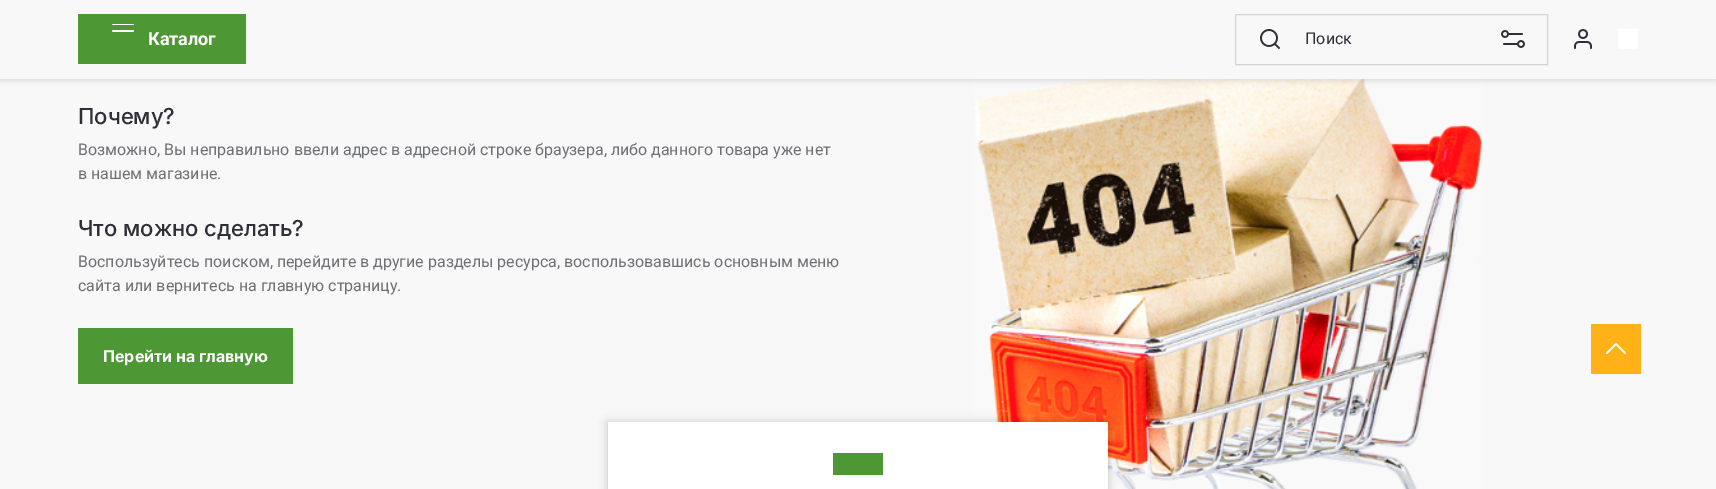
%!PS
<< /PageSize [1716 489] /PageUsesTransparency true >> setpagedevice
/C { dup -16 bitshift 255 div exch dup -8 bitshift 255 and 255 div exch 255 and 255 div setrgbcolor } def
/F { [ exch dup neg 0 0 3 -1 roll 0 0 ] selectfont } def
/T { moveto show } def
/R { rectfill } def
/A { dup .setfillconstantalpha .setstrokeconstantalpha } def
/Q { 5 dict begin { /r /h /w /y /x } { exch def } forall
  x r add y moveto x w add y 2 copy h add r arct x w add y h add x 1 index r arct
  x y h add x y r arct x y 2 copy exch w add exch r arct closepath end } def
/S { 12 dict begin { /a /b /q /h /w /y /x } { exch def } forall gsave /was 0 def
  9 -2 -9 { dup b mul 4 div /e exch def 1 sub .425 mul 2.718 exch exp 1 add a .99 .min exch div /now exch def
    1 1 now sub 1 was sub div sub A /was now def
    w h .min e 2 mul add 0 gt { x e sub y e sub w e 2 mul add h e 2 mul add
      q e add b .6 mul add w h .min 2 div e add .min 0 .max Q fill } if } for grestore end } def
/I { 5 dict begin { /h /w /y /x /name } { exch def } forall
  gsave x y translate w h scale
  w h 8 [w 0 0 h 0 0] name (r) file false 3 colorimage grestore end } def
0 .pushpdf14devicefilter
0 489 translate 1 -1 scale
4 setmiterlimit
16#F8F8F8 C
0 0 1716 489 R
(5.rgb) 974 79 508 410 I
16#000000 C
0 2 1716 79 0 3 .12 S
16#F8F8F8 C
0 0 1716 79 R
16#4D9734 C
78 14 168 50 R
(1.rgb) 112 24 22 8 I
/Roboto-Bold 18 F
16#FFFFFF C
(Каталог) 148 45 T
16#D3D3D3 C
1235.5 14.5 312 50 rectstroke
(2.rgb) 1260 29 20 20 I
/Roboto-Regular 16 F
16#2E2F38 C
(Поиск) 1305 44 T
(3.rgb) 1501 30 24 18 I
(4.rgb) 1574 29 18 20 I
16#FFFFFF C
1618 29 20 20 R
/Inter-Medium 22 F
16#2E2F38 C
(Почему?) 78 124 T
/Roboto-Regular 16 F
16#6E7075 C
(Возможно, Вы неправильно ввели адрес в адресной строке браузера, либо данного товара уже нет) 78 155 T
(в нашем магазине.) 78 179 T
/Inter-Medium 22 F
16#2E2F38 C
(Что можно сделать?) 78 236 T
/Roboto-Regular 16 F
16#6E7075 C
(Воспользуйтесь поиском, перейдите в другие разделы ресурса, воспользовавшись основным меню) 78 267 T
(сайта или вернитесь на главную страницу.) 78 291 T
16#4D9734 C
78 328 215 56 R
/Inter-Bold 16 F
16#FFFFFF C
(Перейти на главную) 103 362 T
16#000000 C
608 423 500 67 0 5 .23 S
16#FFFFFF C
608 422 500 67 R
16#4D9734 C
833 453 50 22 R
16#FFB118 C
1591 324 50 50 R
(6.rgb) 1606 343 20 11 I
.poppdf14devicefilter showpage
